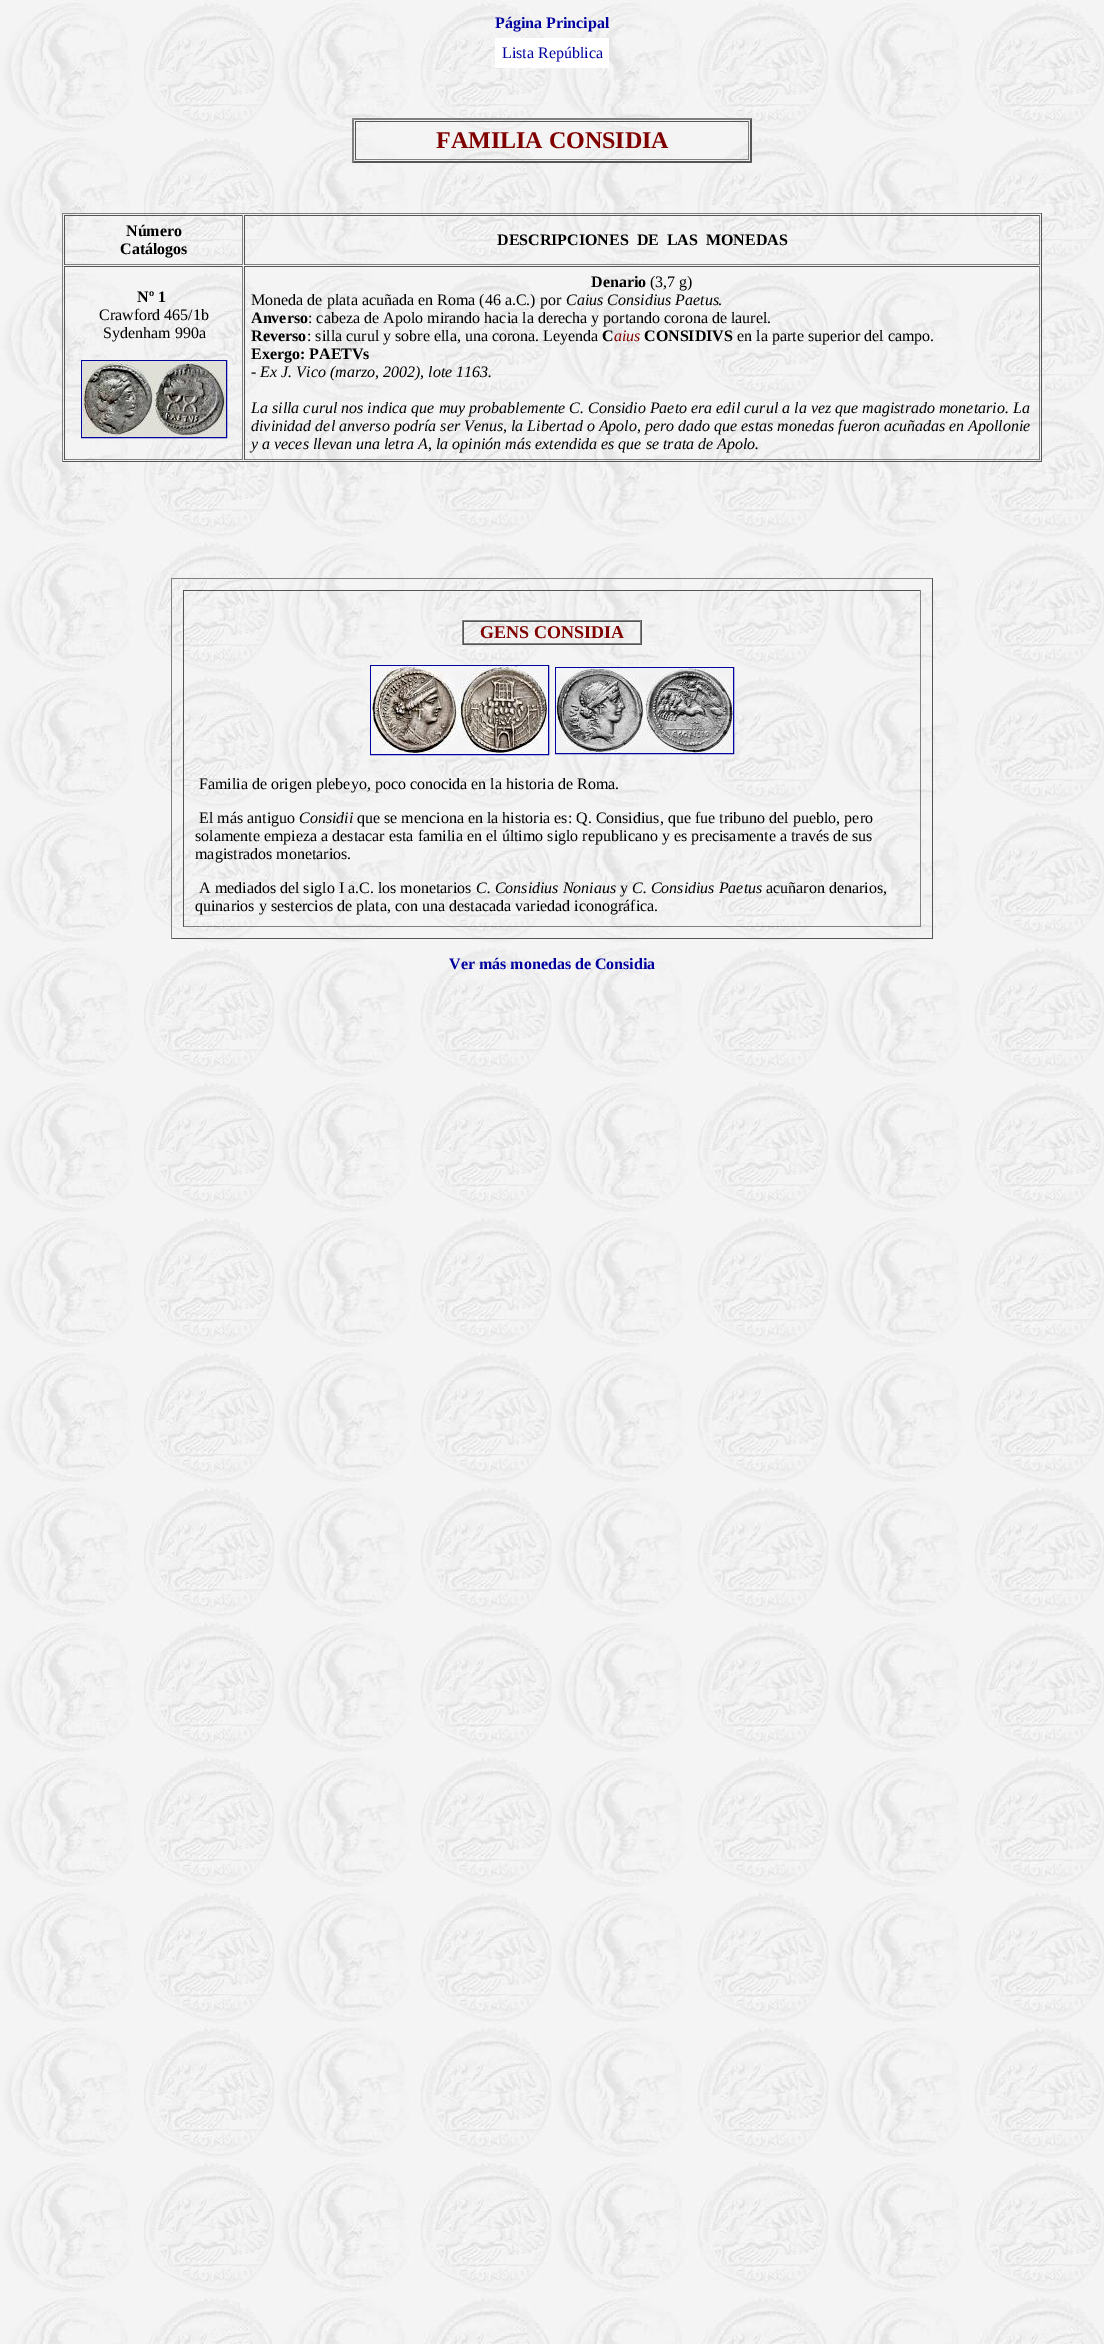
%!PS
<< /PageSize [1104 2344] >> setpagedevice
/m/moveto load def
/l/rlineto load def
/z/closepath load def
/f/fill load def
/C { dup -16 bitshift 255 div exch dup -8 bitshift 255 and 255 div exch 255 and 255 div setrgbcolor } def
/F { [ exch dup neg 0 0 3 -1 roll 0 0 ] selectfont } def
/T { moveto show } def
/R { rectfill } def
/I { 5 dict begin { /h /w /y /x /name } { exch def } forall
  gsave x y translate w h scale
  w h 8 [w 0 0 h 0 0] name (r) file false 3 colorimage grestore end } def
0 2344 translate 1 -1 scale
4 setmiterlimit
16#FFFFFF C
0 0 1104 2344 R
(1.rgb) 0 0 1104 2344 I
/LiberationSerif-Bold 16 F
16#0000A0 C
(Página Principal) 495 28 T
16#FFFFFF C
495 38 114 30 R
/LiberationSerif-Regular 16 F
16#0000A0 C
(Lista República) 502 58 T
16#808080 C
352 118 m 400 0 l -2 2 l -396 0 l z f
16#555555 C
752 118 m 0 45 l -2 -2 l 0 -41 l z f
752 163 m -400 0 l 2 -2 l 396 0 l z f
16#808080 C
352 163 m 0 -45 l 2 2 l 0 41 l z f
16#555555 C
355 121 394 1 R
16#808080 C
748 121 1 39 R
355 159 394 1 R
16#555555 C
355 121 1 39 R
/LiberationSerif-Bold 24 F
16#800000 C
(FAMILIA CONSIDIA) 436 148 T
16#808080 C
62 213 980 1 R
16#555555 C
1041 213 1 249 R
62 461 980 1 R
16#808080 C
62 213 1 249 R
16#555555 C
64 215 179 1 R
16#808080 C
242 215 1 50 R
64 264 179 1 R
16#555555 C
64 215 1 50 R
/LiberationSerif-Bold 16 F
16#000000 C
(Número) 126 236 T
(Catálogos) 120 254 T
16#555555 C
244 215 796 1 R
16#808080 C
1039 215 1 50 R
244 264 796 1 R
16#555555 C
244 215 1 50 R
16#000000 C
(DESCRIPCIONES  DE  LAS  MONEDAS) 497 245 T
16#555555 C
64 266 179 1 R
16#808080 C
242 266 1 194 R
64 459 179 1 R
16#555555 C
64 266 1 194 R
16#000000 C
(Nº 1) 137 302 T
/LiberationSerif-Regular 16 F
(Crawford 465/1b) 99 320 T
(Sydenham 990a) 103 338 T
16#0000A0 C
81.5 360.5 145 77 rectstroke
(2.rgb) 82 361 144 76 I
16#555555 C
244 266 796 1 R
16#808080 C
1039 266 1 194 R
244 459 796 1 R
16#555555 C
244 266 1 194 R
/LiberationSerif-Bold 16 F
16#000000 C
(Denario) 591 287 T
/LiberationSerif-Regular 16 F
(\(3,7 g\)) 650 287 T
(Moneda de plata acuñada en Roma \(46 a.C.\) por) 251 305 T
/LiberationSerif-Italic 16 F
(Caius Considius Paetus) 566 305 T
/LiberationSerif-Regular 16 F
(.) 718 305 T
/LiberationSerif-Bold 16 F
(Anverso) 251 323 T
/LiberationSerif-Regular 16 F
(: cabeza de Apolo mirando hacia la derecha y portando corona de laurel.) 308 323 T
/LiberationSerif-Bold 16 F
(Reverso) 251 341 T
/LiberationSerif-Regular 16 F
(: silla curul y sobre ella, una corona. Leyenda) 307 341 T
/LiberationSerif-Bold 16 F
(C) 602 341 T
/LiberationSerif-Italic 16 F
16#800000 C
(aius) 614 341 T
/LiberationSerif-Bold 16 F
16#000000 C
(CONSIDIVS) 644 341 T
/LiberationSerif-Regular 16 F
(en la parte superior del campo.) 737 341 T
/LiberationSerif-Bold 16 F
(Exergo: PAETVs) 251 359 T
/LiberationSerif-Italic 16 F
(- Ex J. Vico \(marzo, 2002\), lote 1163.) 251 377 T
(La silla curul nos indica que muy probablemente C. Considio Paeto era edil curul a la vez que magistrado monetario. La) 251 413 T
(divinidad del anverso podría ser Venus, la Libertad o Apolo, pero dado que estas monedas fueron acuñadas en Apollonie) 251 431 T
(y a veces llevan una letra A, la opinión más extendida es que se trata de Apolo.) 251 449 T
16#808080 C
171 578 762 1 R
16#555555 C
932 578 1 361 R
171 938 762 1 R
16#808080 C
171 578 1 361 R
16#555555 C
183 590 738 1 R
16#808080 C
920 590 1 337 R
183 926 738 1 R
16#555555 C
183 590 1 337 R
16#808080 C
462 620 180 1 R
16#555555 C
641 620 1 25 R
462 644 180 1 R
16#808080 C
462 620 1 25 R
16#555555 C
463 621 178 1 R
16#808080 C
640 621 1 23 R
463 643 178 1 R
16#555555 C
463 621 1 23 R
/LiberationSerif-Bold 18 F
16#800000 C
(GENS CONSIDIA) 480 638 T
16#0000A0 C
370.5 665.5 178 89 rectstroke
(3.rgb) 371 666 177 88 I
555.5 667.5 178 86 rectstroke
(4.rgb) 556 668 177 85 I
/LiberationSerif-Regular 16 F
16#000000 C
(Familia de origen plebeyo, poco conocida en la historia de Roma.) 199 789 T
(El más antiguo) 199 823 T
/LiberationSerif-Italic 16 F
(Considii) 299 823 T
/LiberationSerif-Regular 16 F
(que se menciona en la historia es: Q. Considius, que fue tribuno del pueblo, pero) 357 823 T
(solamente empieza a destacar esta familia en el último siglo republicano y es precisamente a través de sus) 195 841 T
(magistrados monetarios.) 195 859 T
(A mediados del siglo I a.C. los monetarios) 199 893 T
/LiberationSerif-Italic 16 F
(C. Considius Noniaus) 476 893 T
/LiberationSerif-Regular 16 F
(y) 620 893 T
/LiberationSerif-Italic 16 F
(C. Considius Paetus) 632 893 T
/LiberationSerif-Regular 16 F
(acuñaron denarios,) 766 893 T
(quinarios y sestercios de plata, con una destacada variedad iconográfica.) 195 911 T
/LiberationSerif-Bold 16 F
16#0000A0 C
(Ver más monedas de Considia) 449 969 T
showpage
